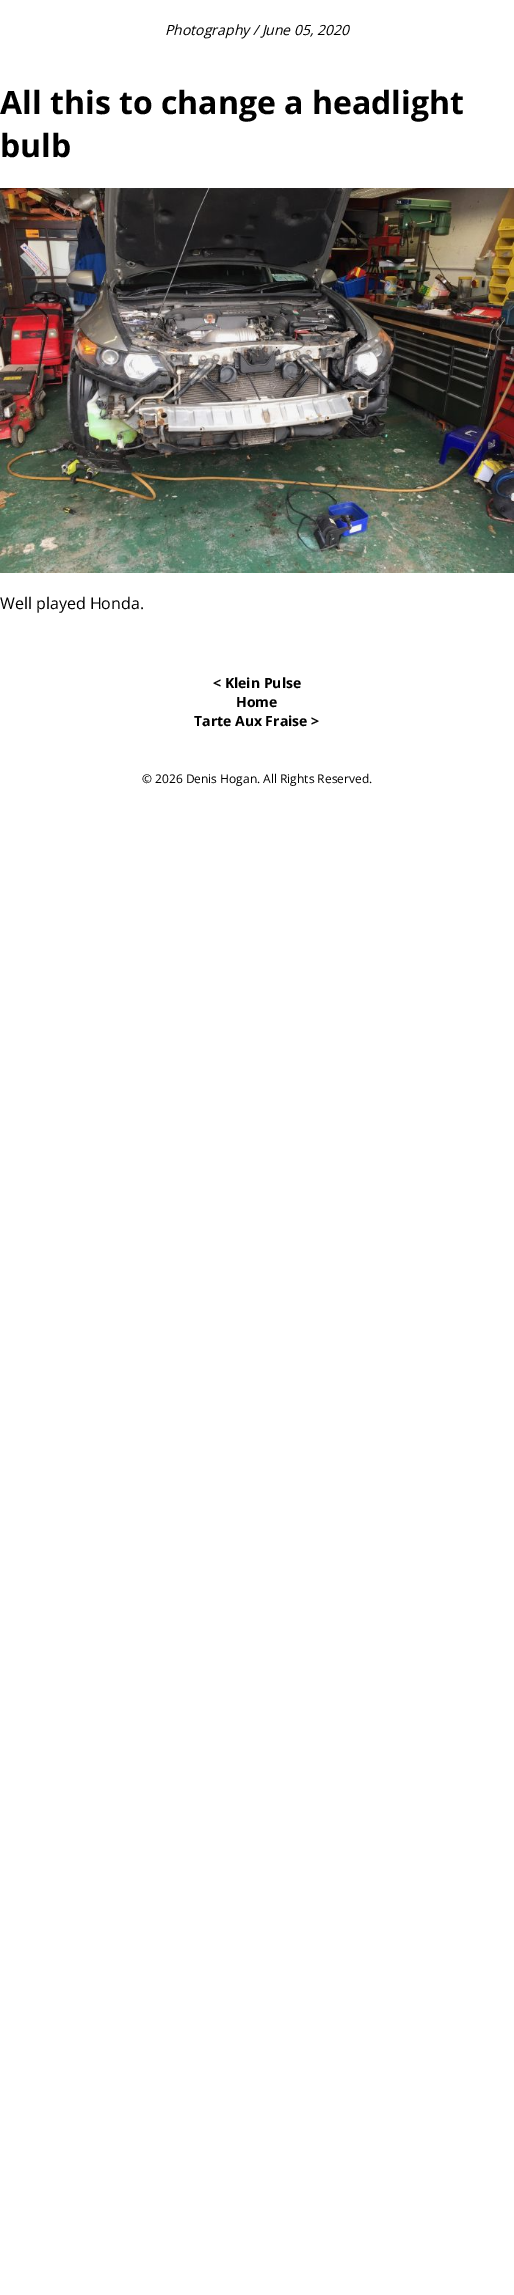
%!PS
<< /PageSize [514 2295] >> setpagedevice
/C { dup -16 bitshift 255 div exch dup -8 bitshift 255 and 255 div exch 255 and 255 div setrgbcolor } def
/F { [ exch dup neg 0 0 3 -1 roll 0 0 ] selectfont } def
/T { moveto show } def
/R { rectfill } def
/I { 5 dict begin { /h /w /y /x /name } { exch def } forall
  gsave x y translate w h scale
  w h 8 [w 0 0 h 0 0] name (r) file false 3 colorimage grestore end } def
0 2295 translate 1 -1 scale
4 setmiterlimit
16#FFFFFF C
0 0 514 2295 R
/OpenSans-Italic 14 F
16#000000 C
(Photography / June 05, 2020) 165 35 T
/OpenSans-Bold 32 F
(All this to change a headlight) 0 114 T
(bulb) 0 157 T
(1.rgb) 0 188 514 385 I
/OpenSans-Regular 16 F
(Well played Honda.) 0 609 T
/OpenSans-Bold 14 F
(< Klein Pulse) 213 688 T
(Home) 236 707 T
(Tarte Aux Fraise >) 194 726 T
/OpenSans-Regular 12 F
(© 2026 Denis Hogan. All Rights Reserved.) 142 783 T
showpage
